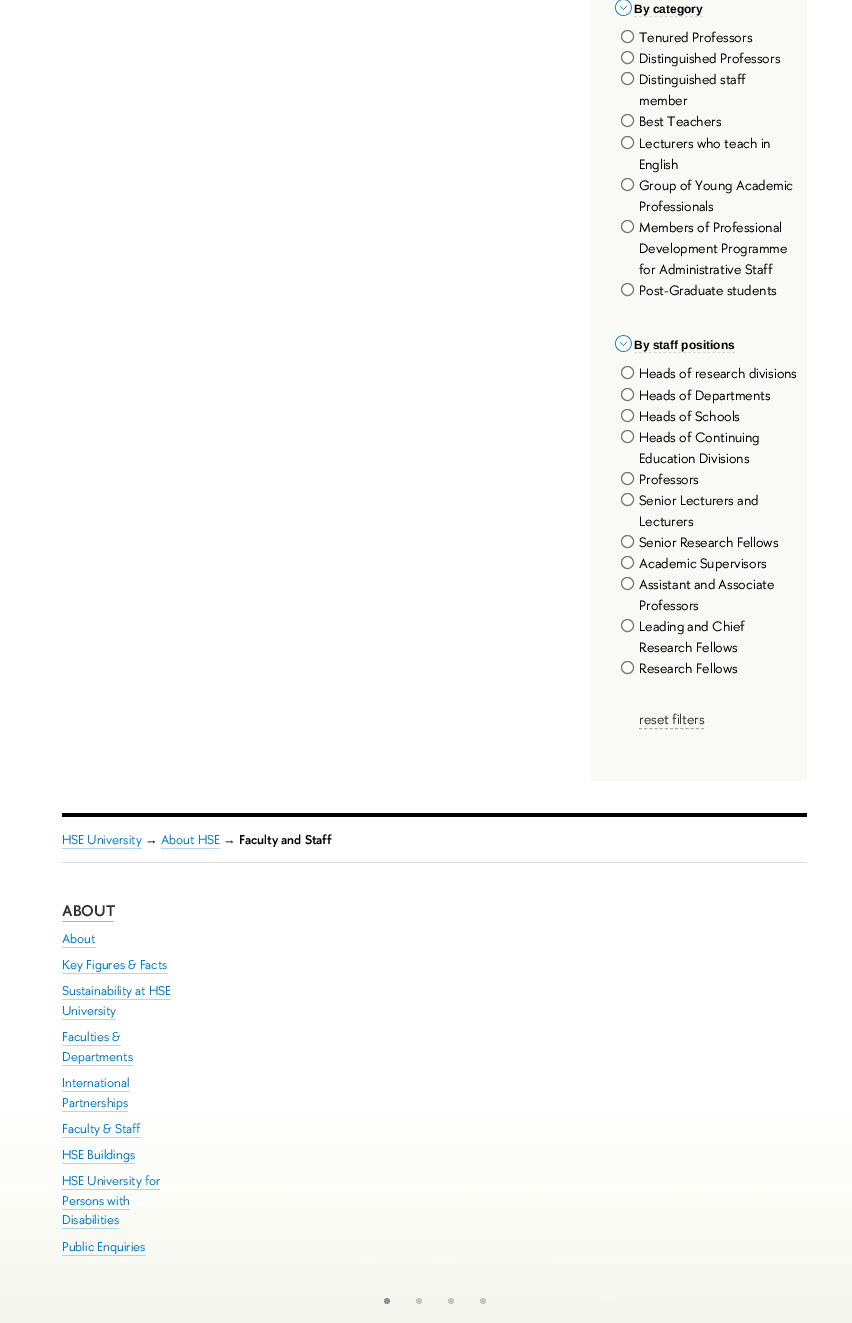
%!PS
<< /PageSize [852 1323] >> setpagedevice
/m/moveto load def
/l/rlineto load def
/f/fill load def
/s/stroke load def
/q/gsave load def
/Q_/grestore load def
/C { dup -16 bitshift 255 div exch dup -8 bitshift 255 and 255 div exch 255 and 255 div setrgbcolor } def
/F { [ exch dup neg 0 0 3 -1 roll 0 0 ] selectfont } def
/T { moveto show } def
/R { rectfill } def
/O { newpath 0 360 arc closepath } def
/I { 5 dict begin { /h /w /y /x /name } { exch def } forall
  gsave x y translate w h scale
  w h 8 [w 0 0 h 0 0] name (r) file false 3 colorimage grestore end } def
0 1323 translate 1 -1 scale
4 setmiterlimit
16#FFFFFF C
0 0 852 1323 R
(1.rgb) 0 1119 852 204 I
16#F9FAF5 C
591 0 216 781 R
(2.rgb) 614 0 18 16 I
/LiberationSans-Bold 12 F
16#000000 C
(By сategory) 634 13 T
16#E0E1DD C
[3 2.08] 0 setdash
634 16.5 m 69 0 l s
16#FFFFFF C
627.5 36.5 6 O q f Q_
16#767676 C
[] 0 setdash
s
/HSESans-Regular 13.6 F
16#000000 C
(Tenured Professors) 639 42 T
16#FFFFFF C
627.5 57.5 6 O q f Q_
16#767676 C
s
16#000000 C
(Distinguished Professors) 639 63 T
16#FFFFFF C
627.5 78.5 6 O q f Q_
16#767676 C
s
16#000000 C
(Distinguished staff) 639 84 T
(member) 639 105 T
16#FFFFFF C
627.5 120.5 6 O q f Q_
16#767676 C
s
16#000000 C
(Best Teachers) 639 126 T
16#FFFFFF C
627.5 142.5 6 O q f Q_
16#767676 C
s
16#000000 C
(Lecturers who teach in) 639 148 T
(English) 639 169 T
16#FFFFFF C
627.5 184.5 6 O q f Q_
16#767676 C
s
16#000000 C
(Group of Young Academic) 639 190 T
(Professionals) 639 211 T
16#FFFFFF C
627.5 226.5 6 O q f Q_
16#767676 C
s
16#000000 C
(Members of Professional) 639 232 T
(Development Programme) 639 253 T
(for Administrative Staff) 639 274 T
16#FFFFFF C
627.5 289.5 6 O q f Q_
16#767676 C
s
16#000000 C
(Post-Graduate students) 639 295 T
(3.rgb) 614 335 18 17 I
/LiberationSans-Bold 12 F
(By staff positions) 634 349 T
16#E0E1DD C
[3 1.9] 0 setdash
634 352.5 m 101 0 l s
16#FFFFFF C
627.5 372.5 6 O q f Q_
16#767676 C
[] 0 setdash
s
/HSESans-Regular 13.6 F
16#000000 C
(Heads of research divisions) 639 378 T
16#FFFFFF C
627.5 394.5 6 O q f Q_
16#767676 C
s
16#000000 C
(Heads of Departments) 639 400 T
16#FFFFFF C
627.5 415.5 6 O q f Q_
16#767676 C
s
16#000000 C
(Heads of Schools) 639 421 T
16#FFFFFF C
627.5 436.5 6 O q f Q_
16#767676 C
s
16#000000 C
(Heads of Continuing) 639 442 T
(Education Divisions) 639 463 T
16#FFFFFF C
627.5 478.5 6 O q f Q_
16#767676 C
s
16#000000 C
(Professors) 639 484 T
16#FFFFFF C
627.5 499.5 6 O q f Q_
16#767676 C
s
16#000000 C
(Senior Lecturers and) 639 505 T
(Lecturers) 639 526 T
16#FFFFFF C
627.5 541.5 6 O q f Q_
16#767676 C
s
16#000000 C
(Senior Research Fellows) 639 547 T
16#FFFFFF C
627.5 562.5 6 O q f Q_
16#767676 C
s
16#000000 C
(Academic Supervisors) 639 568 T
16#FFFFFF C
627.5 583.5 6 O q f Q_
16#767676 C
s
16#000000 C
(Assistant and Associate) 639 589 T
(Professors) 639 610 T
16#FFFFFF C
627.5 625.5 6 O q f Q_
16#767676 C
s
16#000000 C
(Leading and Chief) 639 631 T
(Research Fellows) 639 652 T
16#FFFFFF C
627.5 667.5 6 O q f Q_
16#767676 C
s
16#000000 C
(Research Fellows) 639 673 T
16#333333 C
(reset filters) 639 724 T
16#AEAFAC C
[3 2.17] 0 setdash
639 728.5 m 65 0 l s
16#000000 C
62 813 745 4 R
16#DDDDDD C
62 862 745 1 R
/HSESans-Regular 12.75 F
16#007AC5 C
(HSE University) 62 844 T
16#B3D7EE C
62 848 80 1 R
/LiberationSans-Regular 12.75 F
16#000000 C
(→) 145 844 T
/HSESans-Regular 12.75 F
16#007AC5 C
(About HSE) 161 844 T
16#B3D7EE C
161 848 59 1 R
/LiberationSans-Regular 12.75 F
16#000000 C
(→) 223 844 T
/HSESans-SemiBold 12.75 F
(Faculty and Staff) 239 844 T
/HSESans-SemiBold 15.5 F
16#333333 C
(ABOUT) 62 916 T
16#B3B3B3 C
62 921 52 1 R
/HSESans-Regular 12.75 F
16#007AC5 C
(About) 62 943 T
16#B3D7EE C
62 947 34 1 R
16#007AC5 C
(Key Figures & Facts) 62 969 T
16#B3D7EE C
62 973 106 1 R
16#007AC5 C
(Sustainability at HSE) 62 995 T
16#B3D7EE C
62 999 109 1 R
16#007AC5 C
(University) 62 1015 T
16#B3D7EE C
62 1019 54 1 R
16#007AC5 C
(Faculties &) 62 1041 T
16#B3D7EE C
62 1045 59 1 R
16#007AC5 C
(Departments) 62 1061 T
16#B3D7EE C
62 1065 71 1 R
16#007AC5 C
(International) 62 1087 T
16#B3D7EE C
62 1091 68 1 R
16#007AC5 C
(Partnerships) 62 1107 T
16#B3D7EE C
62 1111 66 1 R
16#007AC5 C
(Faculty & Staff) 62 1133 T
16#B1D6EB C
62 1137 79 1 R
16#007AC5 C
(HSE Buildings) 62 1159 T
16#B0D6E9 C
62 1163 73 1 R
16#007AC5 C
(HSE University for) 62 1185 T
16#B0D6E8 C
62 1189 98 1 R
16#007AC5 C
(Persons with) 62 1205 T
16#AFD4E7 C
62 1209 68 1 R
16#007AC5 C
(Disabilities) 62 1224 T
16#AED4E6 C
62 1228 57 1 R
16#007AC5 C
(Public Enquiries) 62 1251 T
16#AED3E5 C
62 1255 84 1 R
16#869791 C
387 1301 3 O f
16#BEC7C1 C
419 1301 3 O f
451 1301 3 O f
483 1301 3 O f
showpage
